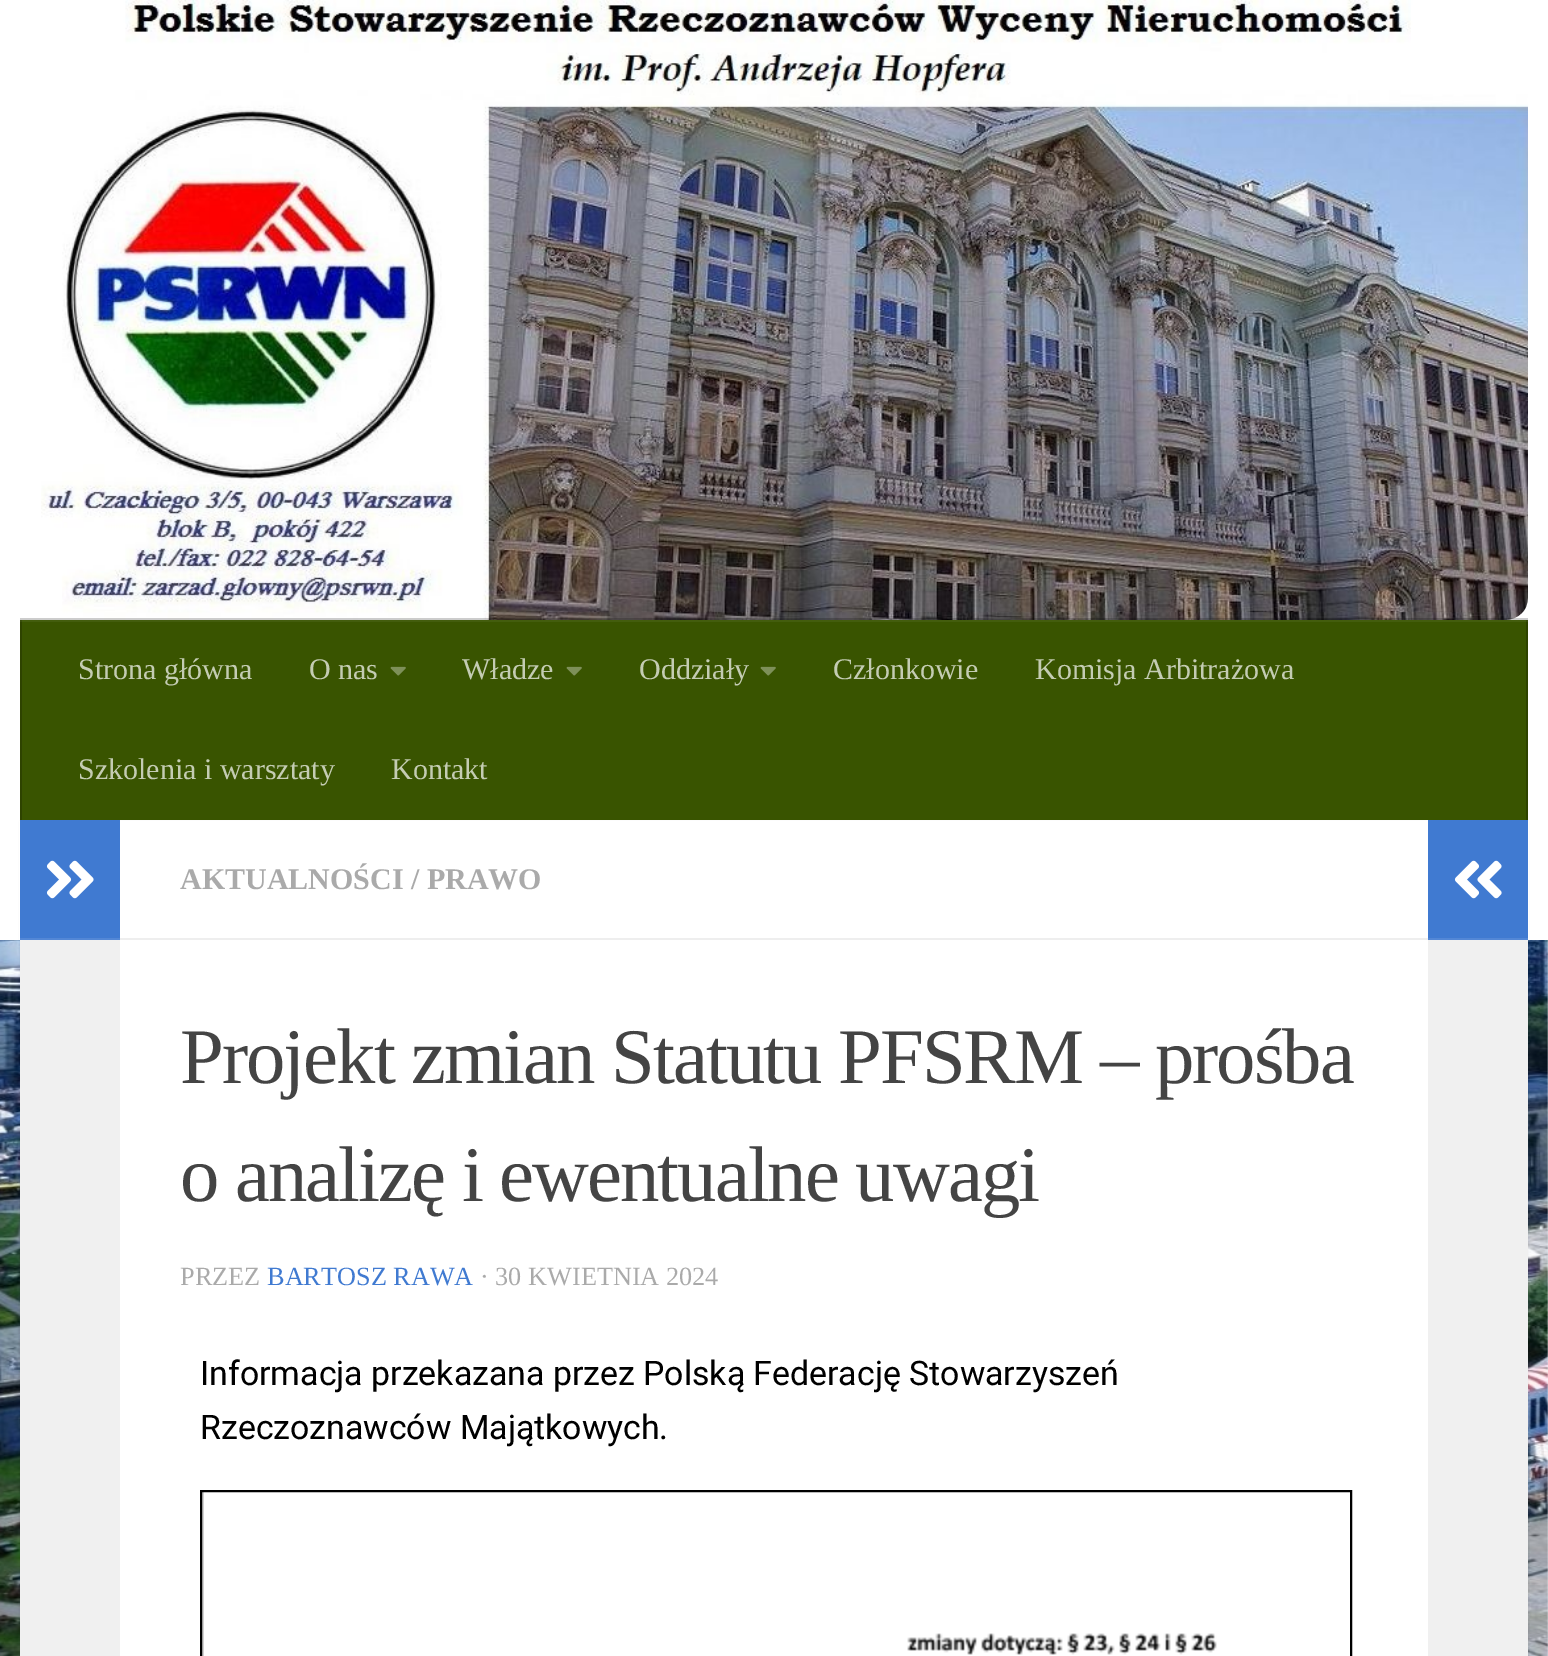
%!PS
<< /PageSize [1548 1656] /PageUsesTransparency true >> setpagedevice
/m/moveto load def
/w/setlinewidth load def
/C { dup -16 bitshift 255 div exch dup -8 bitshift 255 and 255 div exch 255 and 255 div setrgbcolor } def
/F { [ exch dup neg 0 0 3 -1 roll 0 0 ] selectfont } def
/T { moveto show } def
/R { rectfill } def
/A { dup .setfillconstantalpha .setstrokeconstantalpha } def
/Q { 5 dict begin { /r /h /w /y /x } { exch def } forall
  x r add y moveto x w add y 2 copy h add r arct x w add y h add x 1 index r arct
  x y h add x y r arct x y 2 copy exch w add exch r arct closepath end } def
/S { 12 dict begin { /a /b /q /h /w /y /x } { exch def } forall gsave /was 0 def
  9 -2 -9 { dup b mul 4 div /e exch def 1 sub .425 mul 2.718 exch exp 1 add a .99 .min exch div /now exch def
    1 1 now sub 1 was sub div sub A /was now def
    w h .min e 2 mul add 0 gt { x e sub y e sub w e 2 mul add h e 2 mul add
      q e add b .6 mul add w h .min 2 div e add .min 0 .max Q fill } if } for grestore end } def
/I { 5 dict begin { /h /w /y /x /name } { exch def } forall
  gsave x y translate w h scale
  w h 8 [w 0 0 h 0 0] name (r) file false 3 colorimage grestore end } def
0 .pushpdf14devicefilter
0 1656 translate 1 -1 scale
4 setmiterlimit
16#FFFFFF C
0 0 1548 1656 R
(1.rgb) 0 940 1548 716 I
16#000000 C
20 822 1508 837 0 1 .1 S
16#FFFFFF C
19 821 1510 119 R
(2.rgb) 41 0 1487 620 I
0.2 A
16#000000 C
20 618 1508 2 R
1 A
16#395400 C
22 620 1504 200 R
16#2E4300 C
1526 620 2 200 R
20 620 2 200 R
0.05 A
16#FFFFFF C
20 620 1508 2 R
/LiberationSerif-Regular 30 F
1 A
16#C4CCB3 C
(Strona główna) 78 679 T
(O nas) 309 679 T
(3.rgb) 390 666 16 10 I
(Władze) 462 679 T
(3.rgb) 566 666 16 10 I
(Oddziały) 639 679 T
(3.rgb) 760 666 16 10 I
(Członkowie) 833 679 T
(Komisja Arbitrażowa) 1035 679 T
(Szkolenia i warsztaty) 78 779 T
(Kontakt) 391 779 T
16#FFFFFF C
120 940 1308 716 R
16#F0F0F0 C
20 940 100 716 R
16#407AD1 C
20 820 100 118 R
16#5387D6 C
20 938 100 2 R
(4.rgb) 46 860 48 39 I
16#EEEEEE C
120 938 1308 2 R
/LiberationSerif-Bold 30 F
16#AAAAAA C
(AKTUALNOŚCI / PRAWO) 180 889 T
/LiberationSerif-Regular 78.75 F
16#444444 C
180 1083 m -2 0 (Projekt zmian Statutu PFSRM – prośba) ashow
180 1201 m -2 0 (o analizę i ewentualne uwagi) ashow
/LiberationSerif-Regular 26.25 F
16#AAAAAA C
(PRZEZ) 180 1285 T
16#407AD1 C
(BARTOSZ RAWA) 267 1285 T
16#AAAAAA C
(· 30 KWIETNIA 2024) 480 1285 T
/Roboto-Regular 33.85 F
16#000000 C
(Informacja przekazana przez Polską Federację Stowarzyszeń) 200 1385 T
(Rzeczoznawców Majątkowych.) 200 1439 T
16#D3D3D3 C
202 1492 2 164 R
16#000000 C
2 w
201 1491 1150 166 rectstroke
(5.rgb) 907 1633 310 22 I
16#407AD1 C
1428 820 100 118 R
16#5387D6 C
1428 938 100 2 R
(6.rgb) 1454 860 48 39 I
16#F0F0F0 C
1428 940 100 716 R
.poppdf14devicefilter showpage
